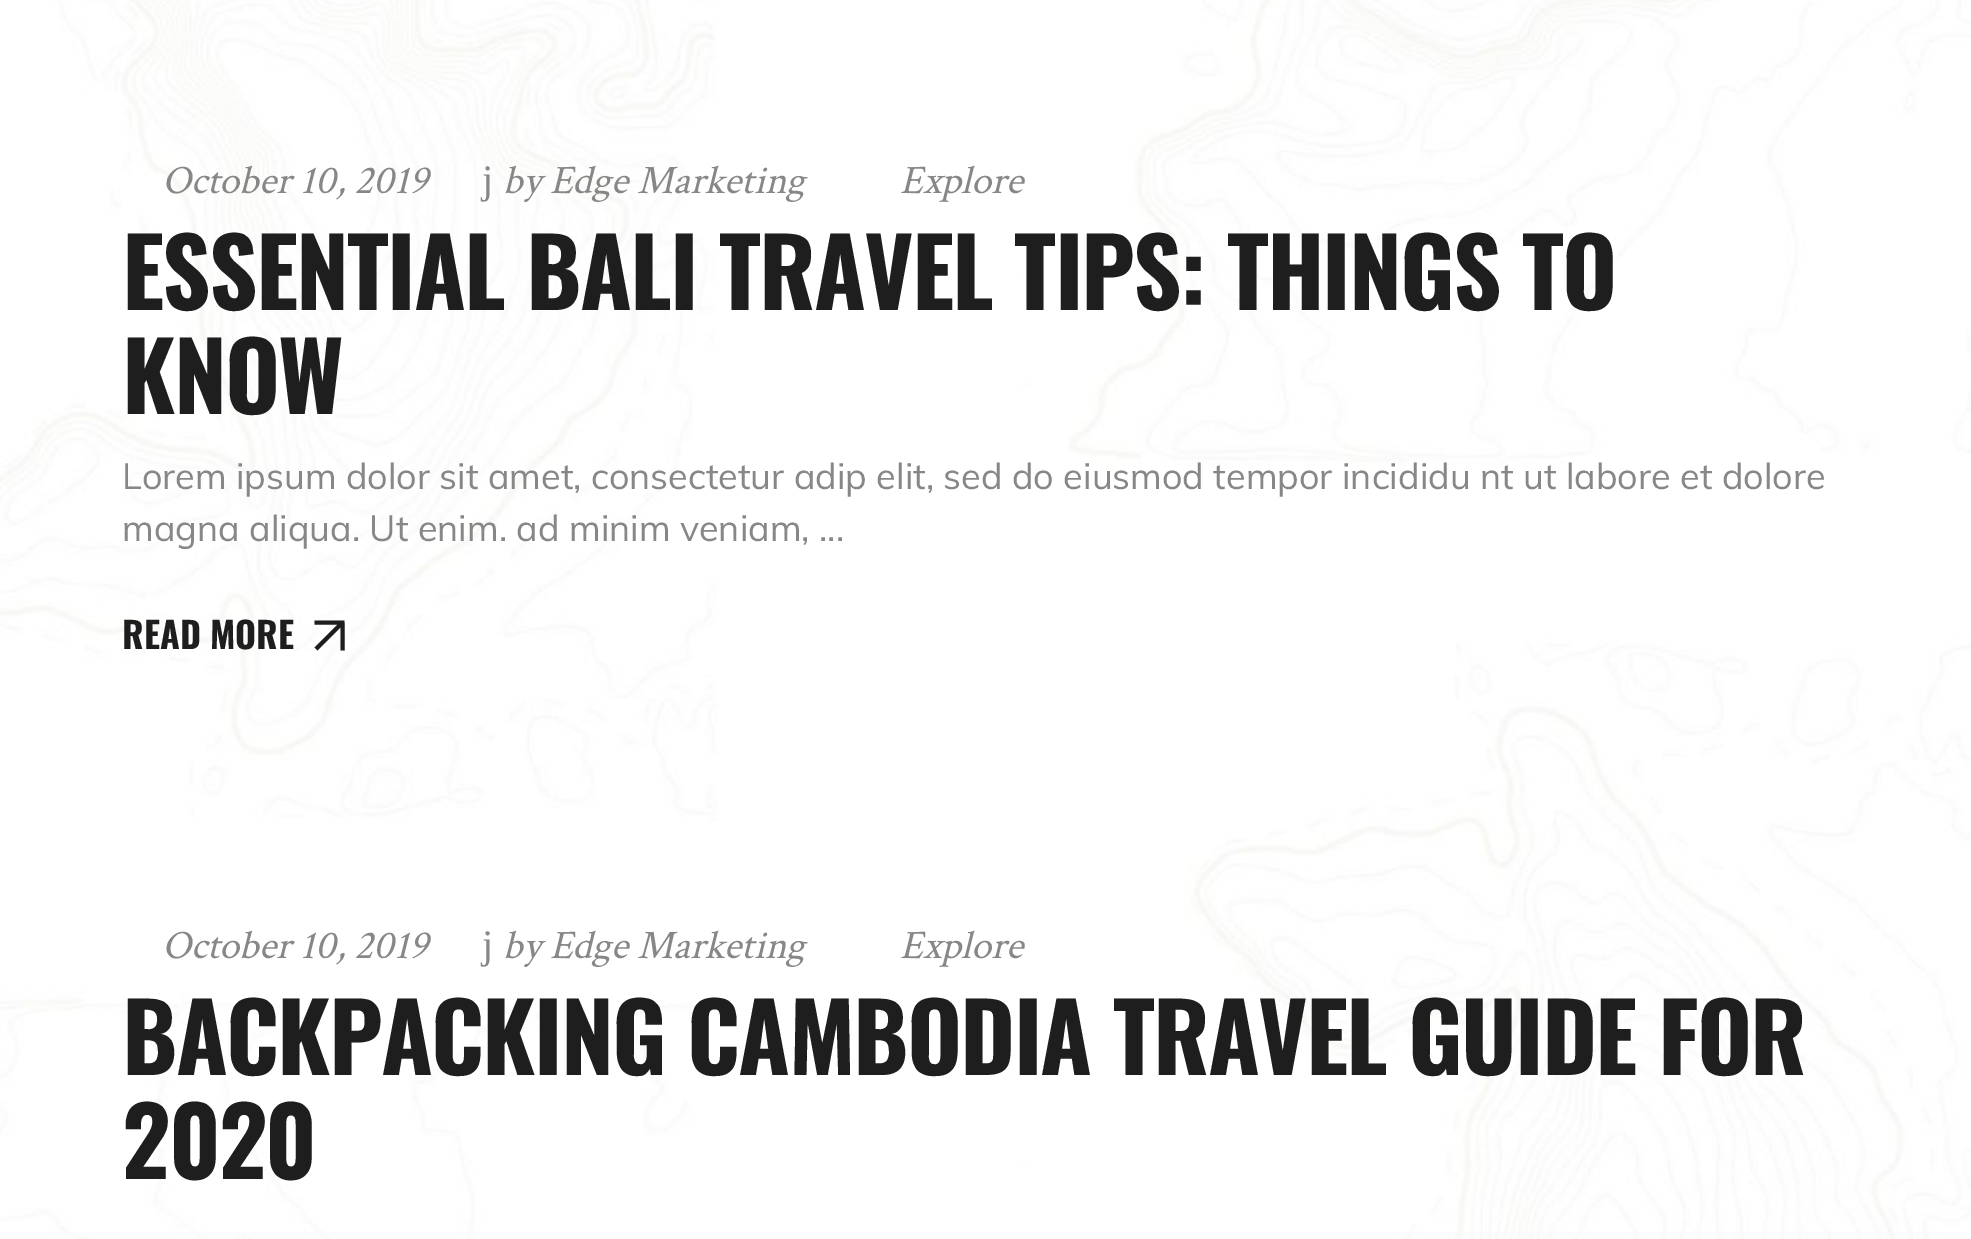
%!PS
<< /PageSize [1971 1239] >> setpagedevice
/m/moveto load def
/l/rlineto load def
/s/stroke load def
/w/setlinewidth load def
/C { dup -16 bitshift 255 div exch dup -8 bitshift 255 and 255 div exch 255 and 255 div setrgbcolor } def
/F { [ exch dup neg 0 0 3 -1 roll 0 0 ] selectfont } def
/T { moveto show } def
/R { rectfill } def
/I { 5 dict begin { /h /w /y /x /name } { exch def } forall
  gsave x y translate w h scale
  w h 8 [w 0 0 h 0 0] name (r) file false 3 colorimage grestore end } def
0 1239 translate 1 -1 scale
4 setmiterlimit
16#FFFFFF C
0 0 1971 1239 R
(1.rgb) 0 0 1971 1239 I
/CrimsonText-Italic 40.5 F
16#878787 C
(October 10, 2019) 162 193 T
/LiberationSerif-Regular 40.5 F
(j) 482 193 T
/CrimsonText-Italic 40.5 F
(by Edge Marketing) 503 193 T
(Explore) 900 193 T
/Oswald-Bold 94.5 F
16#1E1E1E C
122 310 m -1.9 0 (ESSENTIAL BALI TRAVEL TIPS: THINGS TO) ashow
122 414 m -1.9 0 (KNOW) ashow
/Muli-Regular 36 F
16#878787 C
(Lorem ipsum dolor sit amet, consectetur adip elit, sed do eiusmod tempor incididu nt ut labore et dolore) 122 489 T
(magna aliqua. Ut enim. ad minim veniam, ...) 122 541 T
/Oswald-Bold 36 F
16#1E1E1E C
(READ MORE) 122 649 T
4 w
316 649 m 26.5 -26.5 l 344.5 622.5 m -2 0 l 342.5 622.5 m -28 0 l 342.5 650.5 m 0 -28 l s
/CrimsonText-Italic 40.5 F
16#878787 C
(October 10, 2019) 162 958 T
/LiberationSerif-Regular 40.5 F
(j) 482 958 T
/CrimsonText-Italic 40.5 F
(by Edge Marketing) 503 958 T
(Explore) 900 958 T
/Oswald-Bold 94.5 F
16#1E1E1E C
122 1075 m -1.9 0 (BACKPACKING CAMBODIA TRAVEL GUIDE FOR) ashow
122 1179 m -1.9 0 (2020) ashow
showpage
